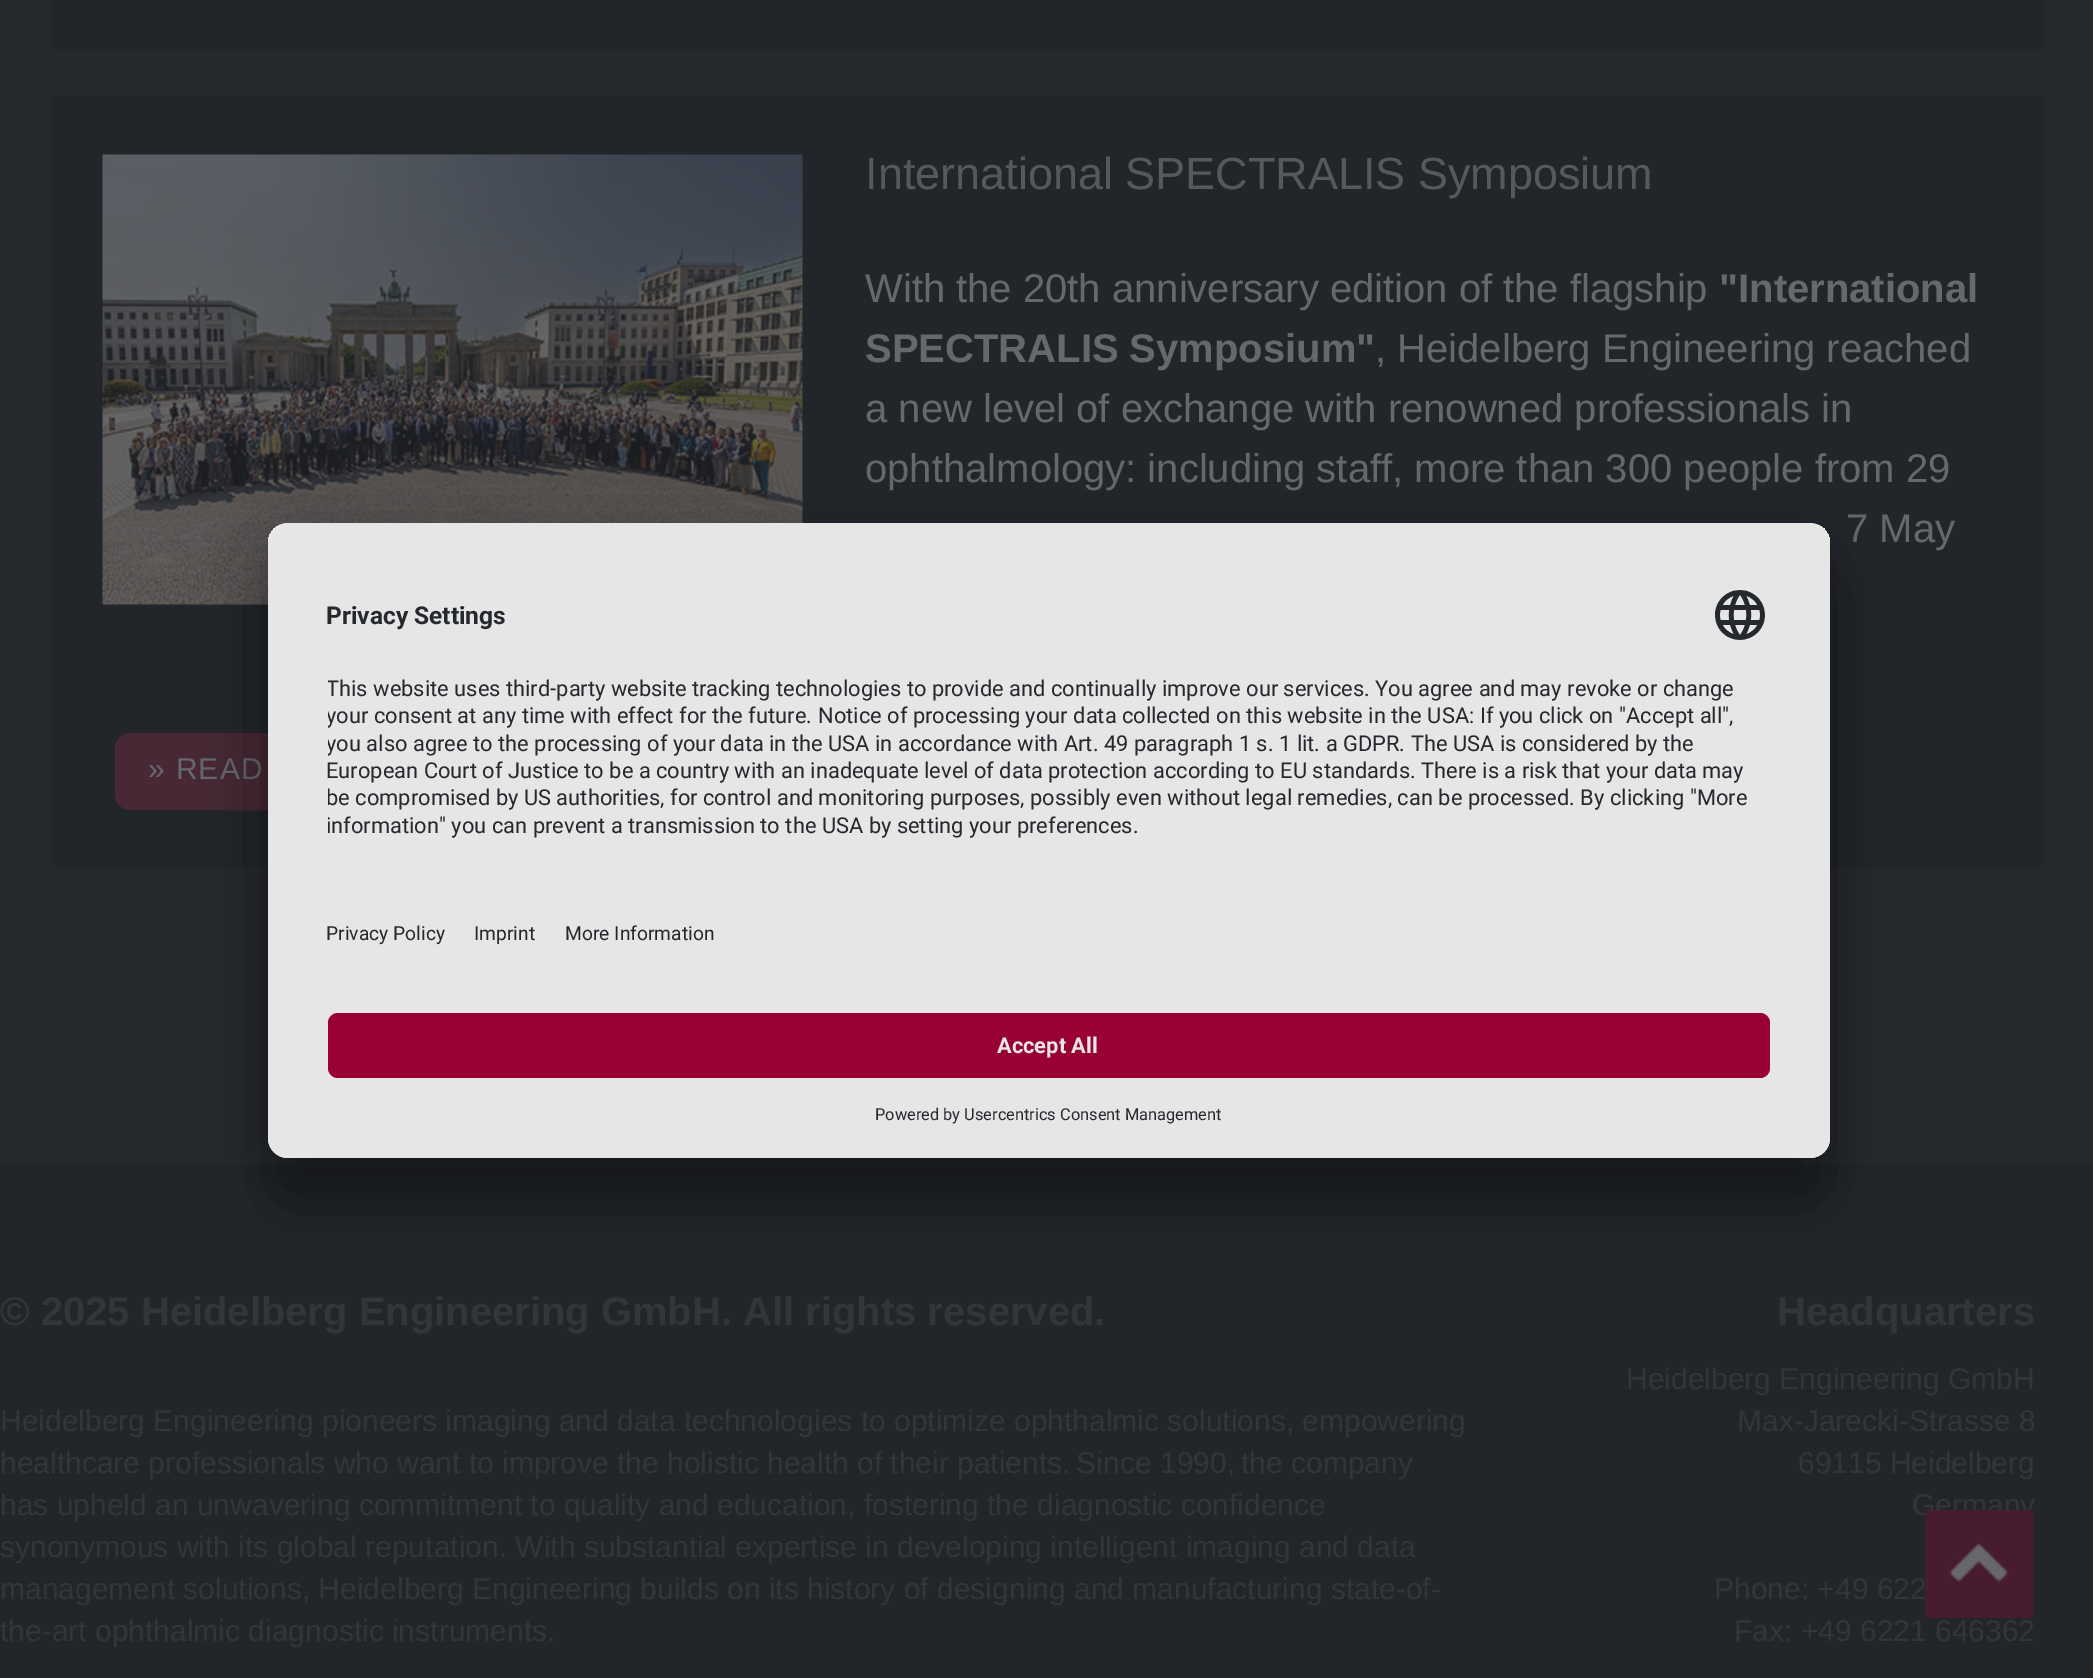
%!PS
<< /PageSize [2093 1678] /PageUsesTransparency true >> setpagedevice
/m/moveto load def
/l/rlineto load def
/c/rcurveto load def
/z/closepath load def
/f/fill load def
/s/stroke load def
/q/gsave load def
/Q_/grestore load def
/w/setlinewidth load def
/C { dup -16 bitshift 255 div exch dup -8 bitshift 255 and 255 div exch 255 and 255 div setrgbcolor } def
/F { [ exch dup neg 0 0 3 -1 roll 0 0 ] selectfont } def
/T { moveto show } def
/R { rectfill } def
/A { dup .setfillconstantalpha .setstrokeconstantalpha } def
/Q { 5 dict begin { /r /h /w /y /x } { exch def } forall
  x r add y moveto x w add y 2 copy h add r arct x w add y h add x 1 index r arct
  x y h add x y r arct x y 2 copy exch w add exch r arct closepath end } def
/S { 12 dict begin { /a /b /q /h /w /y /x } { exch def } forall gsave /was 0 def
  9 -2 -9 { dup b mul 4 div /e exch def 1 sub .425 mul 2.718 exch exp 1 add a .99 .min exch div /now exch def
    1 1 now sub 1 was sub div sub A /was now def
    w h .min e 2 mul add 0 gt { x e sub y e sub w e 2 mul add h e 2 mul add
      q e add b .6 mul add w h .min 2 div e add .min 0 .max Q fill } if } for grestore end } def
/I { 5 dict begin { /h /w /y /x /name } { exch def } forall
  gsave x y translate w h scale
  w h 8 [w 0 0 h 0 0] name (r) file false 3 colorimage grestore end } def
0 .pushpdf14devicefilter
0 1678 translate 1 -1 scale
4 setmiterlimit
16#25282D C
0 0 2093 1678 R
16#222529 C
53 0 1990 50 R
53 96 1990 772 R
(1.rgb) 102 154 701 451 I
/LiberationSans-Regular 45 F
16#56585B C
(International SPECTRALIS Symposium) 865 189 T
/LiberationSans-Regular 40 F
16#66696C C
(With the 20th anniversary edition of the flagship) 865 302 T
/LiberationSans-Bold 40 F
("International) 1719 302 T
(SPECTRALIS Symposium") 865 362 T
/LiberationSans-Regular 40 F
(, Heidelberg Engineering reached) 1375 362 T
(a new level of exchange with renowned professionals in) 865 422 T
(ophthalmology: including staff, more than 300 people from 29) 865 482 T
(7 May) 1846 542 T
16#482834 C
116.5 734.5 282 74 13.5 Q q f Q_
3 w
s
/LiberationSans-Regular 30 F
16#66696C C
148 779 m 1.25 0 (» READ) ashow
16#222529 C
0 1165 2093 513 R
16#000000 C
268 573 1562 635 20 35 .3 S
268 535 1562 635 20 32.5 .22 S
16#E6E6E6 C
268 523 1562 635 20 Q f
q
268 523 1562 635 20 Q clip newpath
288 523 m 1522 0 l 11 0 20 9 20 20 c 0 450 l -1562 0 l 0 -450 l 0 -11 9 -20 20 -20 c z clip newpath
268 525 1562 468 R
Q_
/Roboto-Bold 24.5 F
16#25282D C
(Privacy Settings) 326 624 T
(2.rgb) 1715 590 50 50 I
q
328 665 1442 185 rectclip
/Roboto-Regular 21.88 F
(This website uses third-party website tracking technologies to provide and continually improve our services. You agree and may revoke or change) 326 696 T
(your consent at any time with effect for the future.) 326 723 T
Q_
/Roboto-Regular 21.88 F
(Notice of processing your data collected on this website in the USA: If you click on "Accept all",) 818 723 T
q
328 665 1442 185 rectclip
(you also agree to the processing of your data in the USA in accordance with Art. 49 paragraph 1 s. 1 lit. a GDPR. The USA is considered by the) 326 751 T
Q_
(European Court of Justice to be a country with an inadequate level of data protection according to EU standards. There is a risk that your data may) 326 778 T
q
328 665 1442 185 rectclip
(be compromised by US authorities, for control and monitoring purposes, possibly even without legal remedies, can be processed. By clicking "More) 326 805 T
(information" you can prevent a transmission to the USA by setting your preferences.) 326 833 T
Q_
/Roboto-Regular 19.25 F
(Privacy Policy) 326 940 T
(Imprint) 474 940 T
(More Information) 565 940 T
16#E6E6E6 C
268 993 m 1562 0 l 0 145 l 0 11 -9 20 -20 20 c -1522 0 l -11 0 -20 -9 -20 -20 c z f
16#990033 C
328 1013 1442 65 10 Q f
/Roboto-Bold 21.88 F
16#E6E6E6 C
(Accept All) 997 1053 T
/Roboto-Regular 16.4 F
16#25282D C
(Powered by Usercentrics Consent Management) 875 1120 T
/LiberationSans-Bold 40 F
16#333538 C
(© 2025 Heidelberg Engineering GmbH. All rights reserved.) 0 1325 T
(Headquarters) 1777 1325 T
/LiberationSans-Regular 30 F
(Heidelberg Engineering GmbH) 1626 1389 T
(Max-Jarecki-Strasse 8) 1737 1431 T
(69115 Heidelberg) 1798 1473 T
(Germany) 1912 1515 T
(Phone: +49 622) 1714 1599 T
(Fax: +49 6221 646362) 1734 1641 T
(Heidelberg Engineering pioneers imaging and data technologies to optimize ophthalmic solutions, empowering) 0 1431 T
(healthcare professionals who want to improve the holistic health of their patients. Since 1990, the company) 0 1473 T
(has upheld an unwavering commitment to quality and education, fostering the diagnostic confidence) 0 1515 T
(synonymous with its global reputation. With substantial expertise in developing intelligent imaging and data) 0 1557 T
(management solutions, Heidelberg Engineering builds on its history of designing and manufacturing state-of-) 0 1599 T
(the-art ophthalmic diagnostic instruments.) 0 1641 T
16#481C2F C
1925 1510 108 108 5 Q f
(3.rgb) 1949 1543 60 39 I
.poppdf14devicefilter showpage
